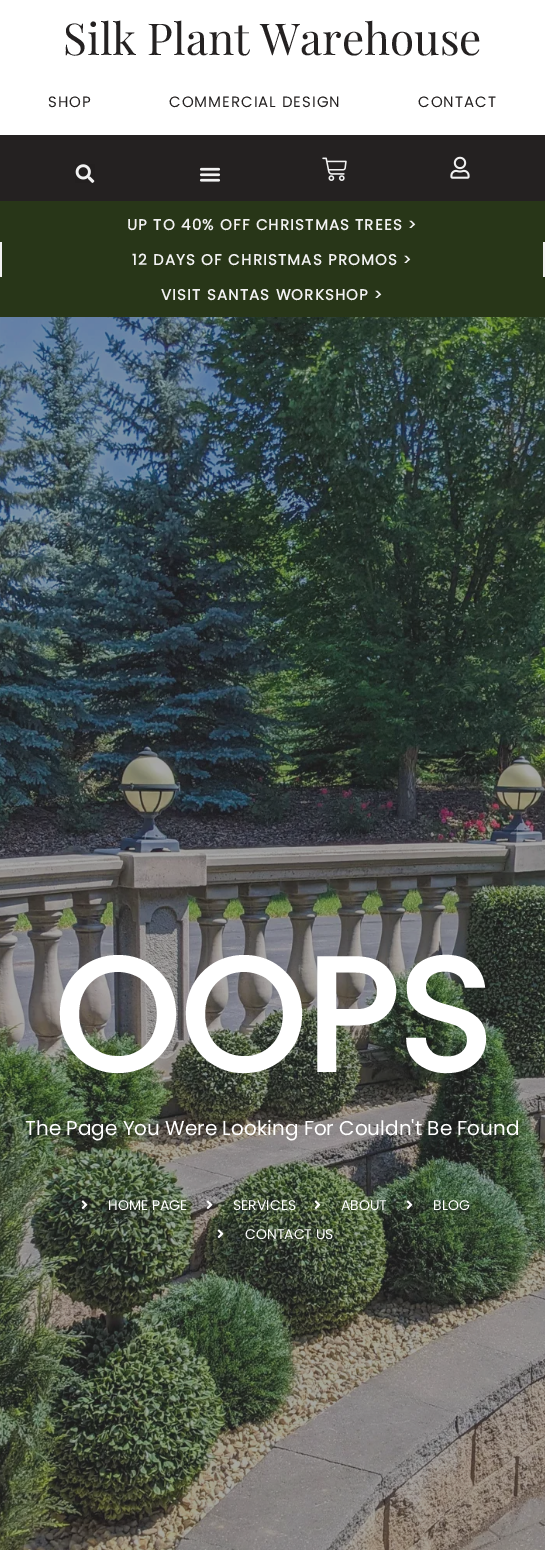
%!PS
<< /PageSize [545 1550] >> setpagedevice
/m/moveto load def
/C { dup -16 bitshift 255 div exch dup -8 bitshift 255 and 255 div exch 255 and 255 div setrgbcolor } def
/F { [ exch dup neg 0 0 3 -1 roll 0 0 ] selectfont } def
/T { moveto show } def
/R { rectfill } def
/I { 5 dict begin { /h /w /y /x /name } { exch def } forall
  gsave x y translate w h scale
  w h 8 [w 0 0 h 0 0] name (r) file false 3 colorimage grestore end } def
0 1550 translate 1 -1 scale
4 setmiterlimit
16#FFFFFF C
0 0 545 1550 R
/PlayfairDisplay-Regular 44 F
16#242121 C
(Silk Plant Warehouse) 63 55 T
/Poppins-Regular 15 F
48 107 m 1 0 (SHOP) ashow
169 107 m 1 0 (COMMERCIAL DESIGN) ashow
418 107 m 1 0 (CONTACT) ashow
0 135 545 66 R
(1.rgb) 75 164 20 19 I
(2.rgb) 199 167 22 15 I
(3.rgb) 322 157 25 24 I
(4.rgb) 450 156 20 23 I
16#283618 C
0 201 545 116 R
/Poppins-Bold 15 F
16#F2F2F2 C
127 230 m 1.2 0 (UP TO 40% OFF CHRISTMAS TREES >) ashow
543 242 2 35 R
0 242 2 35 R
132 265 m 1.2 0 (12 DAYS OF CHRISTMAS PROMOS >) ashow
161 300 m 1.2 0 (VISIT SANTAS WORKSHOP >) ashow
(5.rgb) 0 317 545 1233 I
/Poppins-Bold 160 F
16#FFFFFF C
(OOPS) 53 1072 T
/Poppins-Regular 20 F
(The Page You Were Looking For Couldn't Be Found) 25 1135 T
(6.rgb) 81 1200 7 10 I
/Poppins-Regular 14 F
(HOME PAGE) 108 1210 T
(7.rgb) 206 1200 7 10 I
(SERVICES) 233 1210 T
(8.rgb) 314 1200 7 9 I
(ABOUT) 341 1210 T
(9.rgb) 406 1200 7 10 I
(BLOG) 433 1210 T
(10.rgb) 217 1229 7 10 I
(CONTACT US) 245 1239 T
showpage
